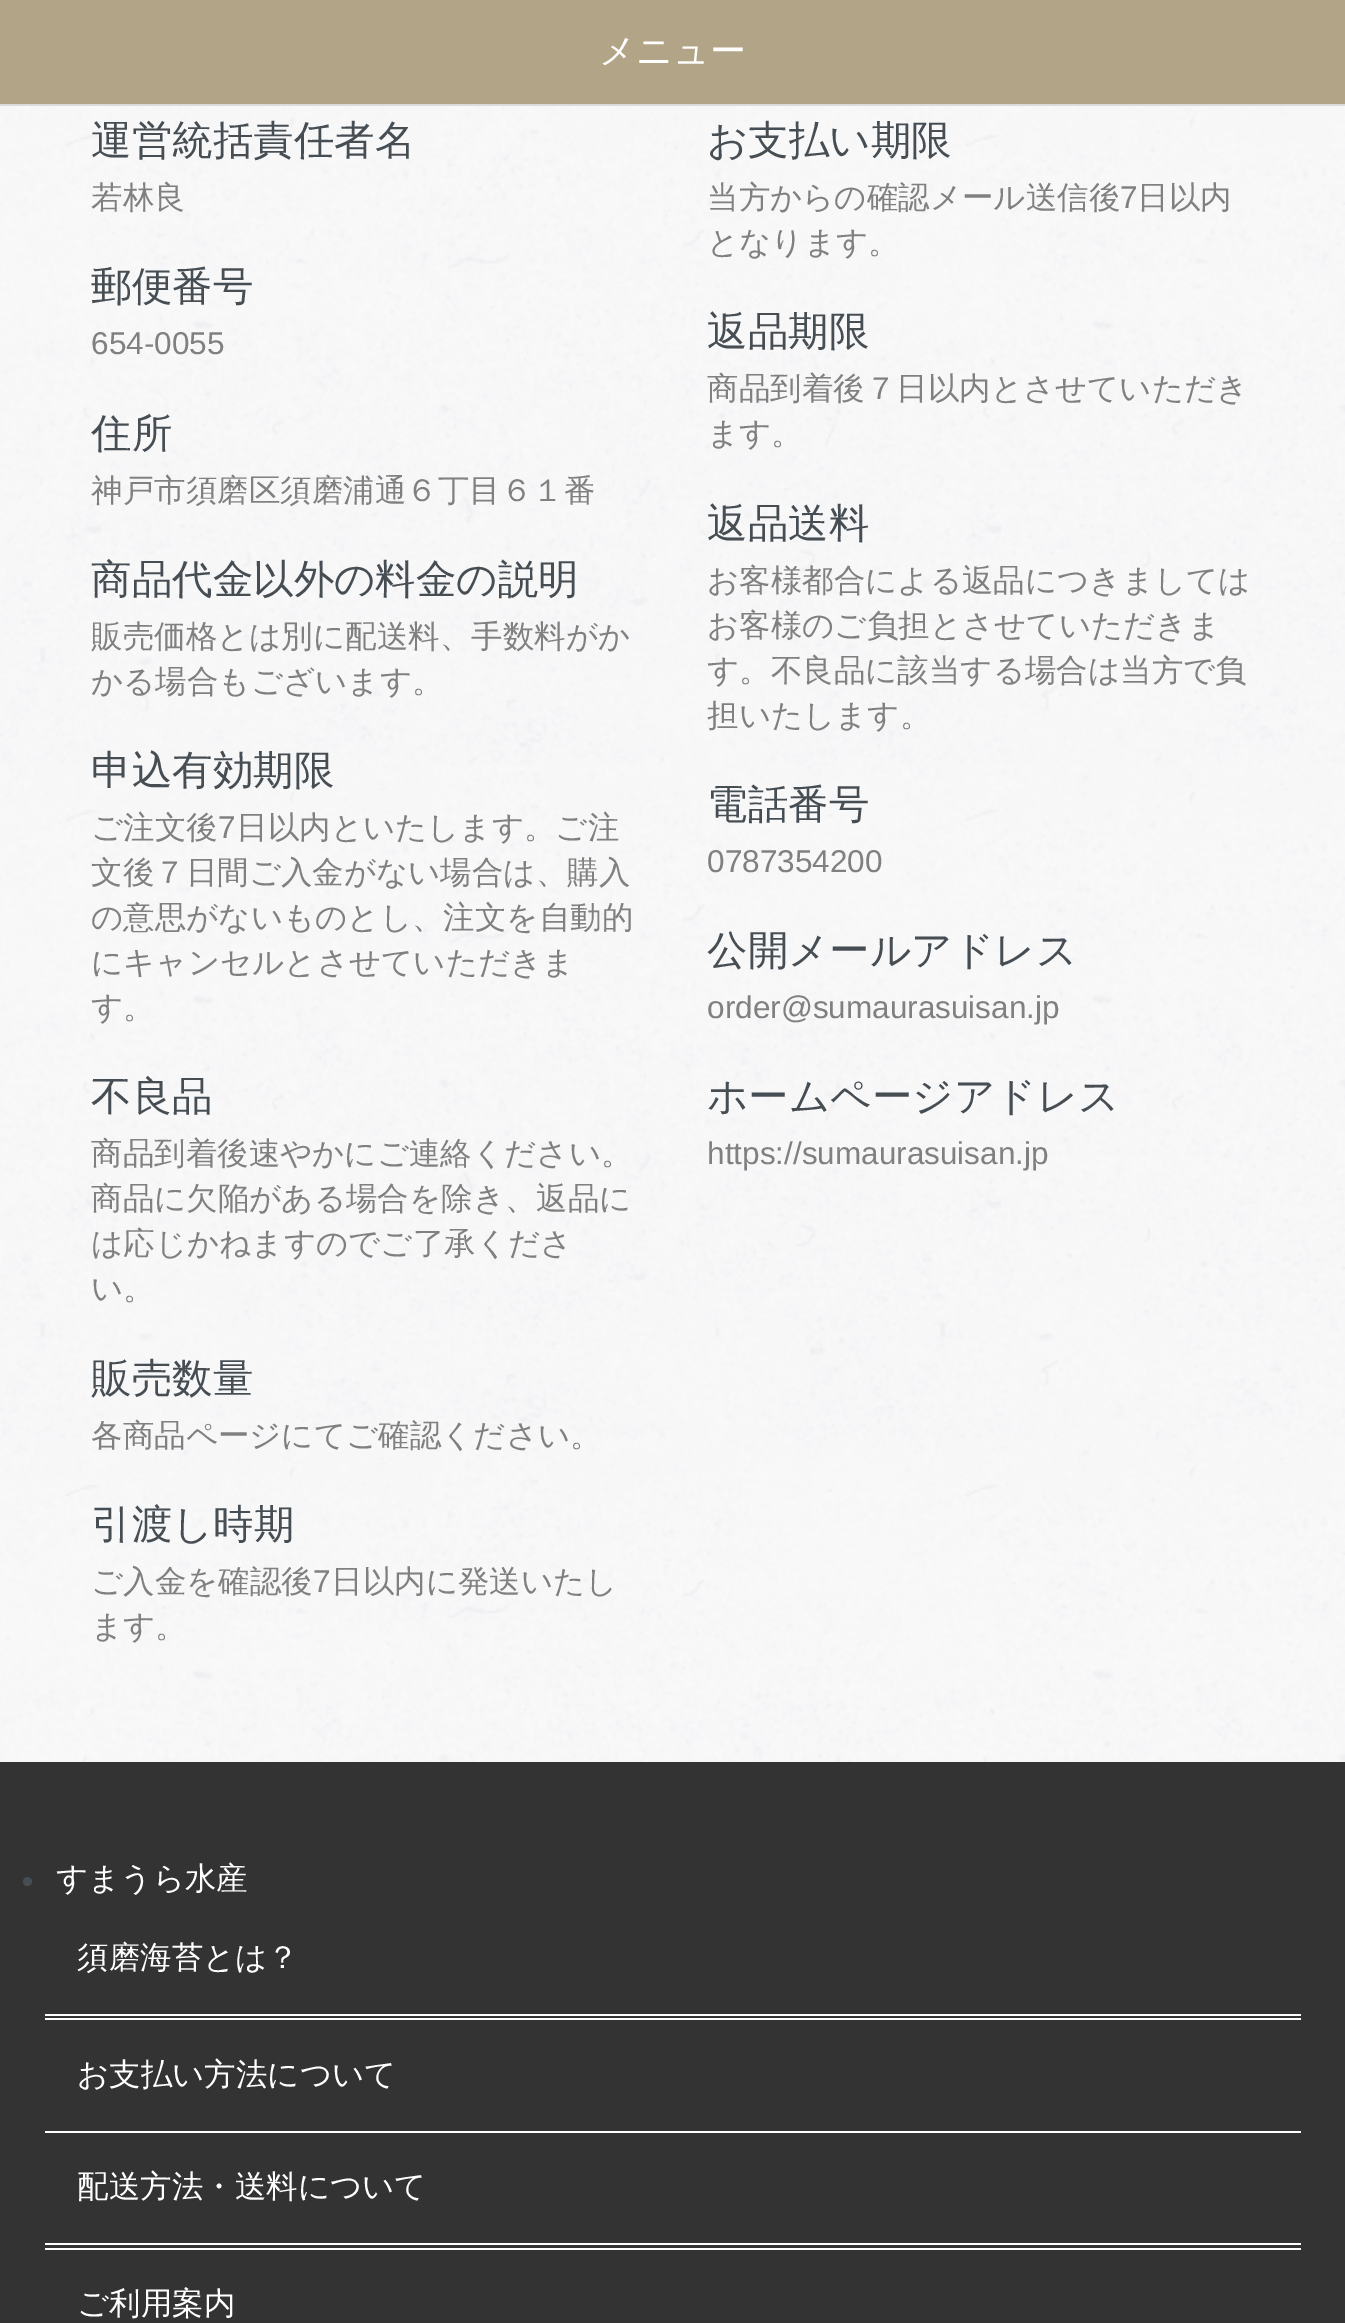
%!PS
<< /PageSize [1345 2323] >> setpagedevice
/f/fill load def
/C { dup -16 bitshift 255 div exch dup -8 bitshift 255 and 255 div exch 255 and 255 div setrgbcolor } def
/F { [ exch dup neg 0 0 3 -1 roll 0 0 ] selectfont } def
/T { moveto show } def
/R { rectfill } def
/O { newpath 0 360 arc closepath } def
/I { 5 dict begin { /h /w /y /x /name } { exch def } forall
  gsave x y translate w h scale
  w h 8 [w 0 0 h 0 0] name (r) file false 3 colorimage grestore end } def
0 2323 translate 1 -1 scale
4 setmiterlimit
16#FFFFFF C
0 0 1345 2323 R
(1.rgb) 0 106 1345 1656 I
16#DBDBDB C
0 104 1345 2 R
16#B2A487 C
0 0 1345 104 R
/WenQuanYiZenHei-Medium 36 F
16#FFFFFF C
(メニュー) 599 63 T
/WenQuanYiZenHei-Medium 40.5 F
16#464E54 C
(運営統括責任者名) 91 154 T
/WenQuanYiZenHei-Medium 31.5 F
16#808080 C
(若林良) 91 208 T
/WenQuanYiZenHei-Medium 40.5 F
16#464E54 C
(郵便番号) 91 300 T
/LiberationSans-Regular 31.5 F
16#808080 C
(654-0055) 91 354 T
/WenQuanYiZenHei-Medium 40.5 F
16#464E54 C
(住所) 91 447 T
/WenQuanYiZenHei-Medium 31.5 F
16#808080 C
(神戸市須磨区須磨浦通６丁目６１番) 91 501 T
/WenQuanYiZenHei-Medium 40.5 F
16#464E54 C
(商品代金以外の料金の説明) 91 593 T
/WenQuanYiZenHei-Medium 31.5 F
16#808080 C
(販売価格とは別に配送料、手数料がか) 91 647 T
(かる場合もございます。) 91 692 T
/WenQuanYiZenHei-Medium 40.5 F
16#464E54 C
(申込有効期限) 91 784 T
/WenQuanYiZenHei-Medium 31.5 F
16#808080 C
(ご注文後) 91 838 T
/LiberationSans-Regular 31.5 F
(7) 218 838 T
/WenQuanYiZenHei-Medium 31.5 F
(日以内といたします。ご注) 236 838 T
(文後７日間ご入金がない場合は、購入) 91 883 T
(の意思がないものとし、注文を自動的) 91 928 T
(にキャンセルとさせていただきま) 91 973 T
(す。) 91 1018 T
/WenQuanYiZenHei-Medium 40.5 F
16#464E54 C
(不良品) 91 1110 T
/WenQuanYiZenHei-Medium 31.5 F
16#808080 C
(商品到着後速やかにご連絡ください。) 91 1164 T
(商品に欠陥がある場合を除き、返品に) 91 1209 T
(は応じかねますのでご了承くださ) 91 1254 T
(い。) 91 1299 T
/WenQuanYiZenHei-Medium 40.5 F
16#464E54 C
(販売数量) 91 1392 T
/WenQuanYiZenHei-Medium 31.5 F
16#808080 C
(各商品ページにてご確認ください。) 91 1446 T
/WenQuanYiZenHei-Medium 40.5 F
16#464E54 C
(引渡し時期) 91 1538 T
/WenQuanYiZenHei-Medium 31.5 F
16#808080 C
(ご入金を確認後) 91 1592 T
/LiberationSans-Regular 31.5 F
(7) 313 1592 T
/WenQuanYiZenHei-Medium 31.5 F
(日以内に発送いたし) 331 1592 T
(ます。) 91 1637 T
/WenQuanYiZenHei-Medium 40.5 F
16#464E54 C
(お支払い期限) 707 154 T
/WenQuanYiZenHei-Medium 31.5 F
16#808080 C
(当方からの確認メール送信後) 707 208 T
/LiberationSans-Regular 31.5 F
(7) 1120 208 T
/WenQuanYiZenHei-Medium 31.5 F
(日以内) 1137 208 T
(となります。) 707 253 T
/WenQuanYiZenHei-Medium 40.5 F
16#464E54 C
(返品期限) 707 345 T
/WenQuanYiZenHei-Medium 31.5 F
16#808080 C
(商品到着後７日以内とさせていただき) 707 399 T
(ます。) 707 444 T
/WenQuanYiZenHei-Medium 40.5 F
16#464E54 C
(返品送料) 707 537 T
/WenQuanYiZenHei-Medium 31.5 F
16#808080 C
(お客様都合による返品につきましては) 707 591 T
(お客様のご負担とさせていただきま) 707 636 T
(す。不良品に該当する場合は当方で負) 707 681 T
(担いたします。) 707 726 T
/WenQuanYiZenHei-Medium 40.5 F
16#464E54 C
(電話番号) 707 818 T
/LiberationSans-Regular 31.5 F
16#808080 C
(0787354200) 707 872 T
/WenQuanYiZenHei-Medium 40.5 F
16#464E54 C
(公開メールアドレス) 707 964 T
/LiberationSans-Regular 31.5 F
16#808080 C
(order@sumaurasuisan.jp) 707 1018 T
/WenQuanYiZenHei-Medium 40.5 F
16#464E54 C
(ホームページアドレス) 707 1110 T
/LiberationSans-Regular 31.5 F
16#808080 C
(https://sumaurasuisan.jp) 707 1164 T
16#333333 C
0 1762 1345 561 R
16#464E54 C
27.5 1881.5 4.5 O f
/WenQuanYiZenHei-Medium 31.5 F
16#FFFFFF C
(すまうら水産) 56 1889 T
45 2014 1256 2 R
45 2018 1256 2 R
(須磨海苔とは？) 77 1968 T
45 2243 1256 2 R
45 2248 1256 2 R
(お支払い方法について) 77 2085 T
45 2131 1256 2 R
(配送方法・送料について) 77 2197 T
(ご利用案内) 77 2314 T
showpage
